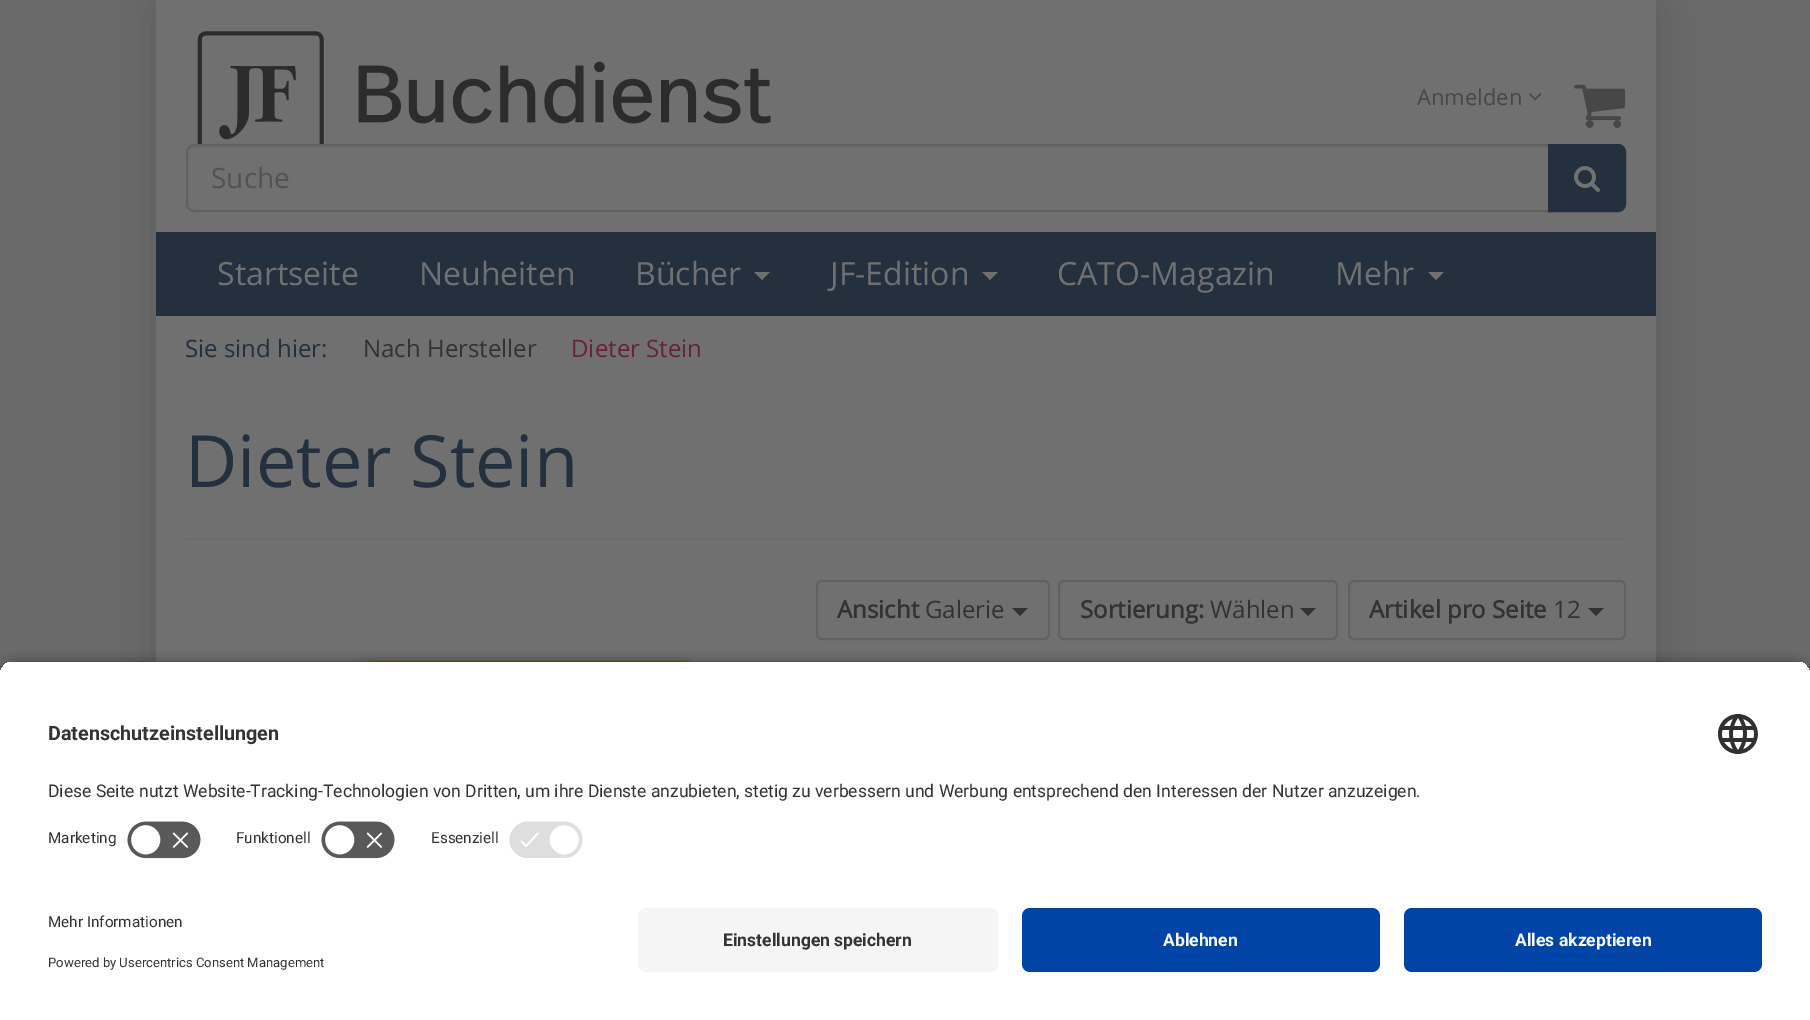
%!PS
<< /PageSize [1810 1020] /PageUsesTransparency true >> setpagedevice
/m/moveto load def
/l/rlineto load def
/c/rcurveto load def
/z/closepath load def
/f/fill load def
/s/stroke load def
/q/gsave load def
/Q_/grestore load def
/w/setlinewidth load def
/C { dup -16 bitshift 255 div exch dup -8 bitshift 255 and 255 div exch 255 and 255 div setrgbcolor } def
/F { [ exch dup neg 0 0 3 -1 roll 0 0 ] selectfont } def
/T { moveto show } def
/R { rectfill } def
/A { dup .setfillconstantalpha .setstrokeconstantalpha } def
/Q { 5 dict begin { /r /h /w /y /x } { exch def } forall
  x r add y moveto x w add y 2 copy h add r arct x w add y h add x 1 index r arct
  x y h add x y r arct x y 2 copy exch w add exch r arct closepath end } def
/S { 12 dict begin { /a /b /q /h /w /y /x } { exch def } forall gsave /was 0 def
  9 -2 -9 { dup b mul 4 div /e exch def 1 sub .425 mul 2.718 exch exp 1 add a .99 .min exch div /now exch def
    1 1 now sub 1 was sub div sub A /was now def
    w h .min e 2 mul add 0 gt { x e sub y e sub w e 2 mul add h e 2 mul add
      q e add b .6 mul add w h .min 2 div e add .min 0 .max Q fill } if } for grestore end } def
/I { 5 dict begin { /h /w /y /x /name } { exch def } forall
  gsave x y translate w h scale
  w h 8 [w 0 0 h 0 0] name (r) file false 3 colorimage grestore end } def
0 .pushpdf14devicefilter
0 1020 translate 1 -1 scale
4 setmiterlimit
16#6A6A6A C
0 0 1810 1020 R
16#242424 C
156 10 1500 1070 0 20 .2 S
16#707070 C
156 0 1500 232 R
(1.rgb) 197 31 574 113 I
/OpenSans-Regular 22 F
16#474747 C
(Anmelden) 1417 105 T
(2.rgb) 1529 93 13 8 I
(3.rgb) 1574 84 52 44 I
16#6B6B6B C
194 148 m 1354 0 l 0 -2 l -1354 0 l -3 0 -6 3 -6 6 c 0 2 l 0 -3 3 -6 6 -6 c z f
16#616161 C
2 w
194 145 m 1355 0 l 0 66 l -1355 0 l -4 0 -7 -3 -7 -7 c 0 -52 l 0 -4 3 -7 7 -7 c z s
/OpenSans-Regular 28 F
16#525252 C
(Suche) 211 188 T
16#24303E C
1549 145 m 69 0 l 4 0 7 3 7 7 c 0 52 l 0 4 -3 7 -7 7 c -69 0 l z q f Q_
s
(4.rgb) 1574 166 26 26 I
156 232 1500 84 R
/OpenSans-Regular 32 F
16#707070 C
(Startseite) 217 285 T
(Neuheiten) 419 285 T
(Bücher) 635 285 T
754 272 m 16 0 l -8 8 l z f
(JF-Edition) 830 285 T
982 272 m 16 0 l -8 8 l z f
(CATO-Magazin) 1057 285 T
(Mehr) 1335 285 T
1428 272 m 16 0 l -8 8 l z f
156 316 1500 346 R
/OpenSans-Regular 24 F
16#24303E C
(Sie sind hier:) 185 357 T
16#333333 C
(Nach Hersteller) 363 357 T
16#672434 C
(Dieter Stein) 571 357 T
16#6B6B6B C
186 538 1440 2 R
/OpenSans-Regular 72 F
16#24303E C
(Dieter Stein) 185 487 T
16#616161 C
817 581 232 58 5 Q s
/OpenSans-Bold 24 F
16#333333 C
(Ansicht) 837 618 T
/OpenSans-Regular 24 F
(Galerie) 925 618 T
1012 608 m 16 0 l -8 8 l z f
16#616161 C
1059 581 278 58 5 Q s
/OpenSans-Bold 24 F
16#333333 C
(Sortierung:) 1080 618 T
/OpenSans-Regular 24 F
(Wählen) 1210 618 T
1300 608 m 16 0 l -8 8 l z f
16#616161 C
1349 581 276 58 5 Q s
/OpenSans-Bold 24 F
16#333333 C
(Artikel pro Seite) 1369 618 T
/OpenSans-Regular 24 F
(12) 1553 618 T
1588 608 m 16 0 l -8 8 l z f
16#383838 C
362 670 320 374 0 8 1 S
(5.rgb) 370 660 320 2 I
16#000000 C
0 666 1810 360 16 7 .8 S
q
16 660 m 1778 0 l 9 0 16 7 16 16 c 0 216 l -1810 0 l 0 -216 l 0 -9 7 -16 16 -16 c z clip newpath
16#FFFFFF C
0 662 1810 230 R
0 662 1810 150 R
Q_
/Roboto-Bold 19.75 F
16#333333 C
(Datenschutzeinstellungen) 48 740 T
(6.rgb) 1718 714 40 40 I
/Roboto-Regular 17.5 F
(Diese Seite nutzt Website-Tracking-Technologien von Dritten, um ihre Dienste anzubieten, stetig zu verbessern und Werbung entsprechend den Interessen der Nutzer anzuzeigen.) 48 797 T
/Roboto-Regular 15.25 F
(Marketing) 48 843 T
(7.rgb) 127 821 74 38 I
(Funktionell) 236 843 T
(7.rgb) 321 821 74 38 I
(Essenziell) 431 843 T
(8.rgb) 509 821 74 37 I
16#FFFFFF C
0 892 1810 128 R
16#333333 C
(Mehr Informationen) 48 927 T
/Roboto-Regular 13.1 F
(Powered by Usercentrics Consent Management) 48 967 T
16#F5F5F5 C
638 908 360 64 8 Q f
/Roboto-Bold 17.5 F
16#333333 C
(Einstellungen speichern) 723 946 T
16#0045A5 C
1022 908 358 64 8 Q f
16#FAFAFA C
(Ablehnen) 1163 946 T
16#0045A5 C
1404 908 358 64 8 Q f
16#FAFAFA C
(Alles akzeptieren) 1515 946 T
.poppdf14devicefilter showpage
